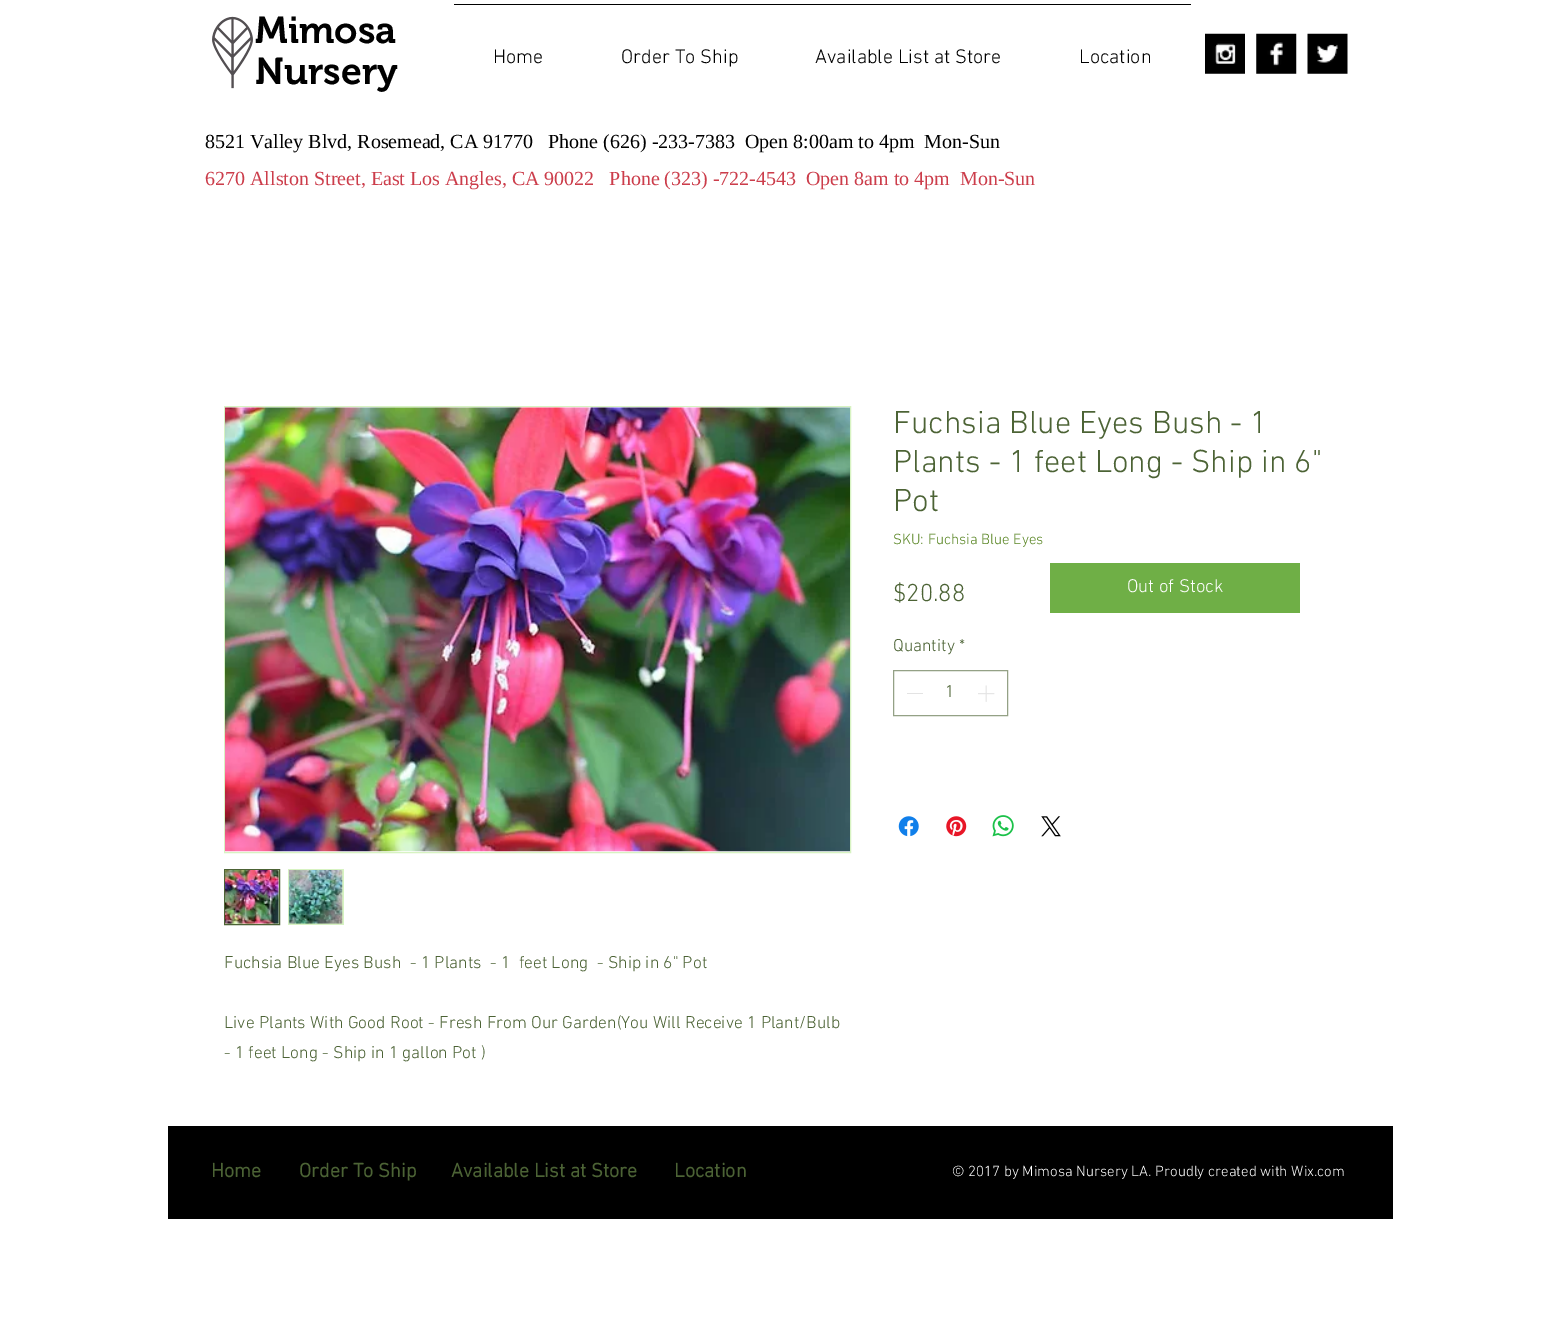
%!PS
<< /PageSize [1559 1325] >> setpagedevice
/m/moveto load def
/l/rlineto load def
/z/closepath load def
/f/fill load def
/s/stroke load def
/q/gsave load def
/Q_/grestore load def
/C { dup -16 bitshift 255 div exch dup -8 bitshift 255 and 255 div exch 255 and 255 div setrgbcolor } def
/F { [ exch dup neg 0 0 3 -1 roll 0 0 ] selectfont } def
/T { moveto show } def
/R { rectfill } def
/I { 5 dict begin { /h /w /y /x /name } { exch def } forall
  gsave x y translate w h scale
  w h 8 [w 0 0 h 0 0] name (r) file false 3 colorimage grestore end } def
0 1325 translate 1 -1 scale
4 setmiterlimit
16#FFFFFF C
0 0 1559 1325 R
(1.rgb) 212 16 41 73 I
/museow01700-SemiBold 37.5 F
16#000000 C
(Mimosa) 255 43 T
(Nursery) 255 84 T
454 4 737 1 R
/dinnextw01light-Light 20 F
(Home) 493 63 T
(Order To Ship) 621 63 T
(Available List at Store) 815 63 T
(Location) 1079 63 T
(2.rgb) 1205 33 40 41 I
(3.rgb) 1256 33 41 41 I
(4.rgb) 1307 33 41 41 I
/LiberationSerif-Regular 20 F
(8521 Valley Blvd, Rosemead, CA 91770   Phone \(626\) -233-7383  Open 8:00am to 4pm  Mon-Sun) 205 148 T
16#CC3D4B C
(6270 Allston Street, East Los Angles, CA 90022   Phone \(323\) -722-4543  Open 8am to 4pm  Mon-Sun) 205 185 T
/dinnextw01light-Light 32.5 F
16#4C6335 C
(Fuchsia Blue Eyes Bush - 1) 893 433 T
(Plants - 1 feet Long - Ship in 6") 893 472 T
(Pot) 893 511 T
/dinnextw01light-Light 15 F
16#588522 C
(SKU: Fuchsia Blue Eyes) 893 544 T
/dinnextw01light-Light 25 F
16#4C6335 C
($20.88) 893 601 T
/dinnextw01light-Light 17.5 F
(Quantity) 893 651 T
(*) 959 651 T
16#94A186 C
893.5 670.5 114 45 rectstroke
16#E3E3E3 C
907 693 16 1 R
16#4C6335 C
(1) 945 697 T
(5.rgb) 978 685 17 17 I
(6.rgb) 898 816 21 21 I
(7.rgb) 946 816 21 21 I
(8.rgb) 992 815 22 22 I
(9.rgb) 1041 816 20 21 I
16#D7F3C2 C
224.5 406.5 626 446 rectstroke
(10.rgb) 225 407 625 445 I
224.5 869.5 m 55 0 l 0 55 l -55 0 l z q f Q_
16#4C6335 C
s
(11.rgb) 225 870 54 54 I
16#D7F3C2 C
288 869 56 56 R
(12.rgb) 288 870 55 54 I
16#4C6335 C
(Fuchsia Blue Eyes Bush  - 1 Plants  - 1  feet Long  - Ship in 6" Pot) 224 968 T
(Live Plants With Good Root - Fresh From Our Garden\(You Will Receive 1 Plant/Bulb) 224 1028 T
(- 1 feet Long - Ship in 1 gallon Pot \)) 224 1058 T
16#6FAF46 C
1050 563 250 50 R
/dinnextw01light-Light 18.75 F
16#FFFFFF C
(Out of Stock) 1127 592 T
16#000000 C
168 1126 1225 93 R
/dinnextw01light-Bold 20 F
16#4C6335 C
(Home) 211 1177 T
(Order To Ship) 299 1177 T
(Available List at Store) 451 1177 T
(Location) 674 1177 T
/dinnextw01light-Light 15 F
16#FFFFFF C
(© 2017 by Mimosa Nursery LA. Proudly created with Wix.com) 952 1176 T
showpage
